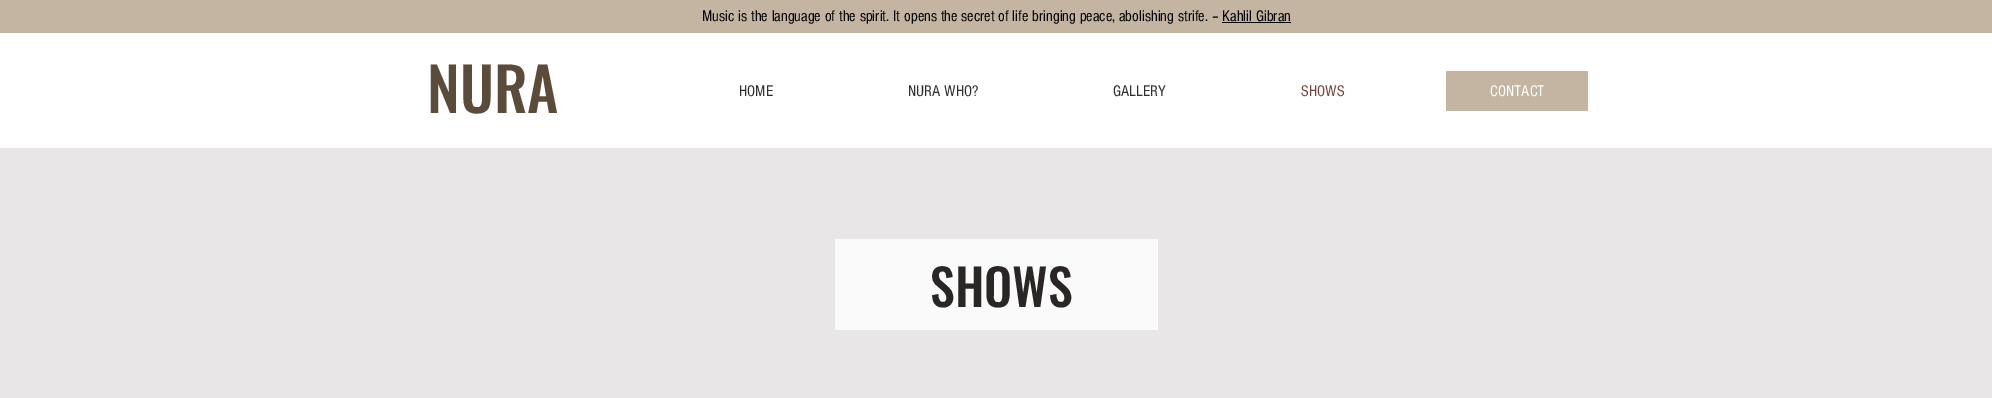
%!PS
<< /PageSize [1992 398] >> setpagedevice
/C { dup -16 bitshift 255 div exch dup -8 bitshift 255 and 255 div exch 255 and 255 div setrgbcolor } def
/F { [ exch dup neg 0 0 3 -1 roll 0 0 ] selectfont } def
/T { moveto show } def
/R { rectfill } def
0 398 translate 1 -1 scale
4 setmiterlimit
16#FFFFFF C
0 0 1992 398 R
16#C3B5A2 C
0 0 1992 33 R
/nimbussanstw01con-Regular 16 F
16#000000 C
(Music is the language of the spirit. It opens the secret of life bringing peace, abolishing strife. – Kahlil Gibran) 702 21 T
1222 22 69 1 R
/Oswald-Medium 60 F
16#5B4B3B C
(NURA) 427 113 T
/nimbussanstw01con-Regular 16 F
16#312E2C C
(HOME) 739 96 T
(NURA WHO?) 908 96 T
(GALLERY) 1113 96 T
16#7A423C C
(SHOWS) 1301 96 T
16#C3B5A2 C
1446 71 142 40 R
16#FFFFFF C
(CONTACT) 1490 96 T
16#E8E6E6 C
0 148 1992 250 R
16#FAFAFA C
835 239 323 91 R
/Oswald-Medium 50 F
16#2A2626 C
(SHOWS) 930 307 T
showpage
